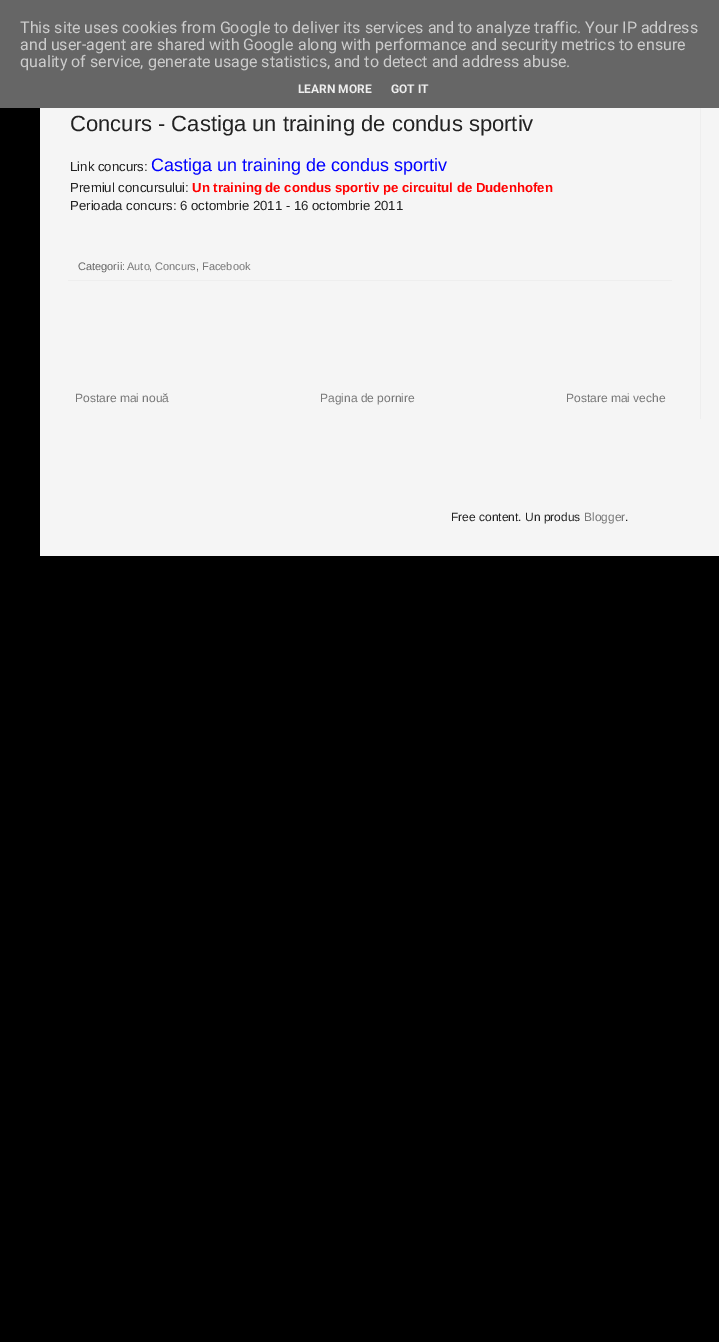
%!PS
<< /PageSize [719 1342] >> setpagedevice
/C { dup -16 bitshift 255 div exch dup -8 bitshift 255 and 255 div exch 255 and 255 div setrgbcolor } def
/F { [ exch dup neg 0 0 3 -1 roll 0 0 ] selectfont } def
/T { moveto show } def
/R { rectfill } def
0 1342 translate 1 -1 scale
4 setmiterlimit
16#000000 C
0 0 719 1342 R
16#666666 C
0 0 719 108 R
/Roboto-Regular 16 F
16#CCCCCC C
(This site uses cookies from Google to deliver its services and to analyze traffic. Your IP address) 20 33 T
(and user-agent are shared with Google along with performance and security metrics to ensure) 20 50 T
(quality of service, generate usage statistics, and to detect and address abuse.) 20 67 T
/Roboto-Bold 12 F
16#EEEEEE C
(LEARN MORE) 298 93 T
(GOT IT) 391 93 T
16#F5F5F5 C
40 108 679 448 R
/LiberationSans-Regular 22 F
16#222222 C
(Concurs - Castiga un training de condus sportiv) 70 131 T
/LiberationSans-Regular 13.2 F
(Link concurs:) 70 171 T
/LiberationSans-Regular 18 F
16#0000FF C
(Castiga un training de condus sportiv) 151 171 T
/LiberationSans-Regular 13.2 F
16#222222 C
(Premiul concursului:) 70 192 T
/LiberationSans-Bold 13.2 F
16#FF0000 C
(Un training de condus sportiv pe circuitul de Dudenhofen) 192 192 T
/LiberationSans-Regular 13.2 F
16#222222 C
(Perioada concurs: 6 octombrie 2011 - 16 octombrie 2011) 70 210 T
16#EEEEEE C
68 280 604 1 R
/LiberationSans-Regular 11 F
16#666666 C
(Categorii:) 78 270 T
16#777777 C
(Auto) 127 270 T
16#666666 C
(,) 149 270 T
16#777777 C
(Concurs) 155 270 T
16#666666 C
(,) 196 270 T
16#777777 C
(Facebook) 202 270 T
/LiberationSans-Regular 12 F
(Postare mai nouă) 75 402 T
(Pagina de pornire) 320 402 T
(Postare mai veche) 566 402 T
16#EEEEEE C
700 108 1 311 R
16#222222 C
(Free content. Un produs) 451 521 T
16#777777 C
(Blogger) 584 521 T
16#222222 C
(.) 625 521 T
showpage
